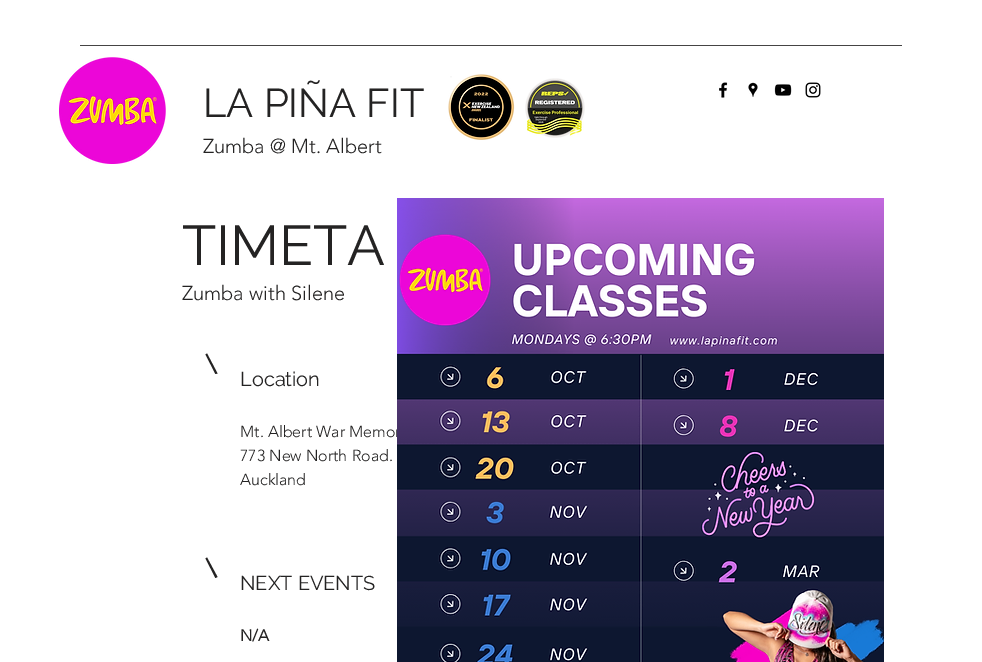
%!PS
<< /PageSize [982 662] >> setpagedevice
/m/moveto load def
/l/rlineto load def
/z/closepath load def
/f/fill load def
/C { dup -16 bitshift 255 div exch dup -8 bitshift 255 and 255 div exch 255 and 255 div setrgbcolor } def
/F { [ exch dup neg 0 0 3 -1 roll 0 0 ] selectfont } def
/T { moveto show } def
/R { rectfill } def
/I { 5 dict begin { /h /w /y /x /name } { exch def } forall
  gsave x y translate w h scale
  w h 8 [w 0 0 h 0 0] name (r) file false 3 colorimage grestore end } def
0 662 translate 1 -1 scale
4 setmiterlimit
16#FFFFFF C
0 0 982 662 R
16#454444 C
80 45 822 1 R
(1.rgb) 59 57 107 107 I
/Raleway-Regular 40 F
16#242323 C
(LA PIÑA FIT) 203 117 T
(2.rgb) 448 74 67 66 I
(3.rgb) 525 78 60 60 I
/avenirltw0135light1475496-Light 20 F
(Zumba @ Mt. Albert) 203 153 T
(4.rgb) 719 82 9 16 I
(5.rgb) 748 82 10 15 I
(6.rgb) 774 84 18 12 I
(7.rgb) 805 82 16 16 I
/Raleway-Regular 56 F
(TIMETA) 182 265 T
/avenirltw0135light1475496-Light 20 F
(Zumba with Silene) 182 300 T
205.5 354.5 m 1.5 -1 l 10.5 20 l -2 .5 l z f
/Raleway-Regular 20 F
(Location) 240 386 T
/avenirltw0135light1475496-Light 16 F
(Mt. Albert War Memor) 240 437 T
(773 New North Road.) 240 461 T
(Auckland) 240 485 T
205.5 558.5 m 1.5 -1 l 10.5 19.5 l -2 1 l z f
/Raleway-Regular 20 F
(NEXT EVENTS) 240 590 T
/avenirltw0135light1475496-Bold 16 F
(N/A) 240 641 T
(8.rgb) 397 198 487 464 I
showpage
